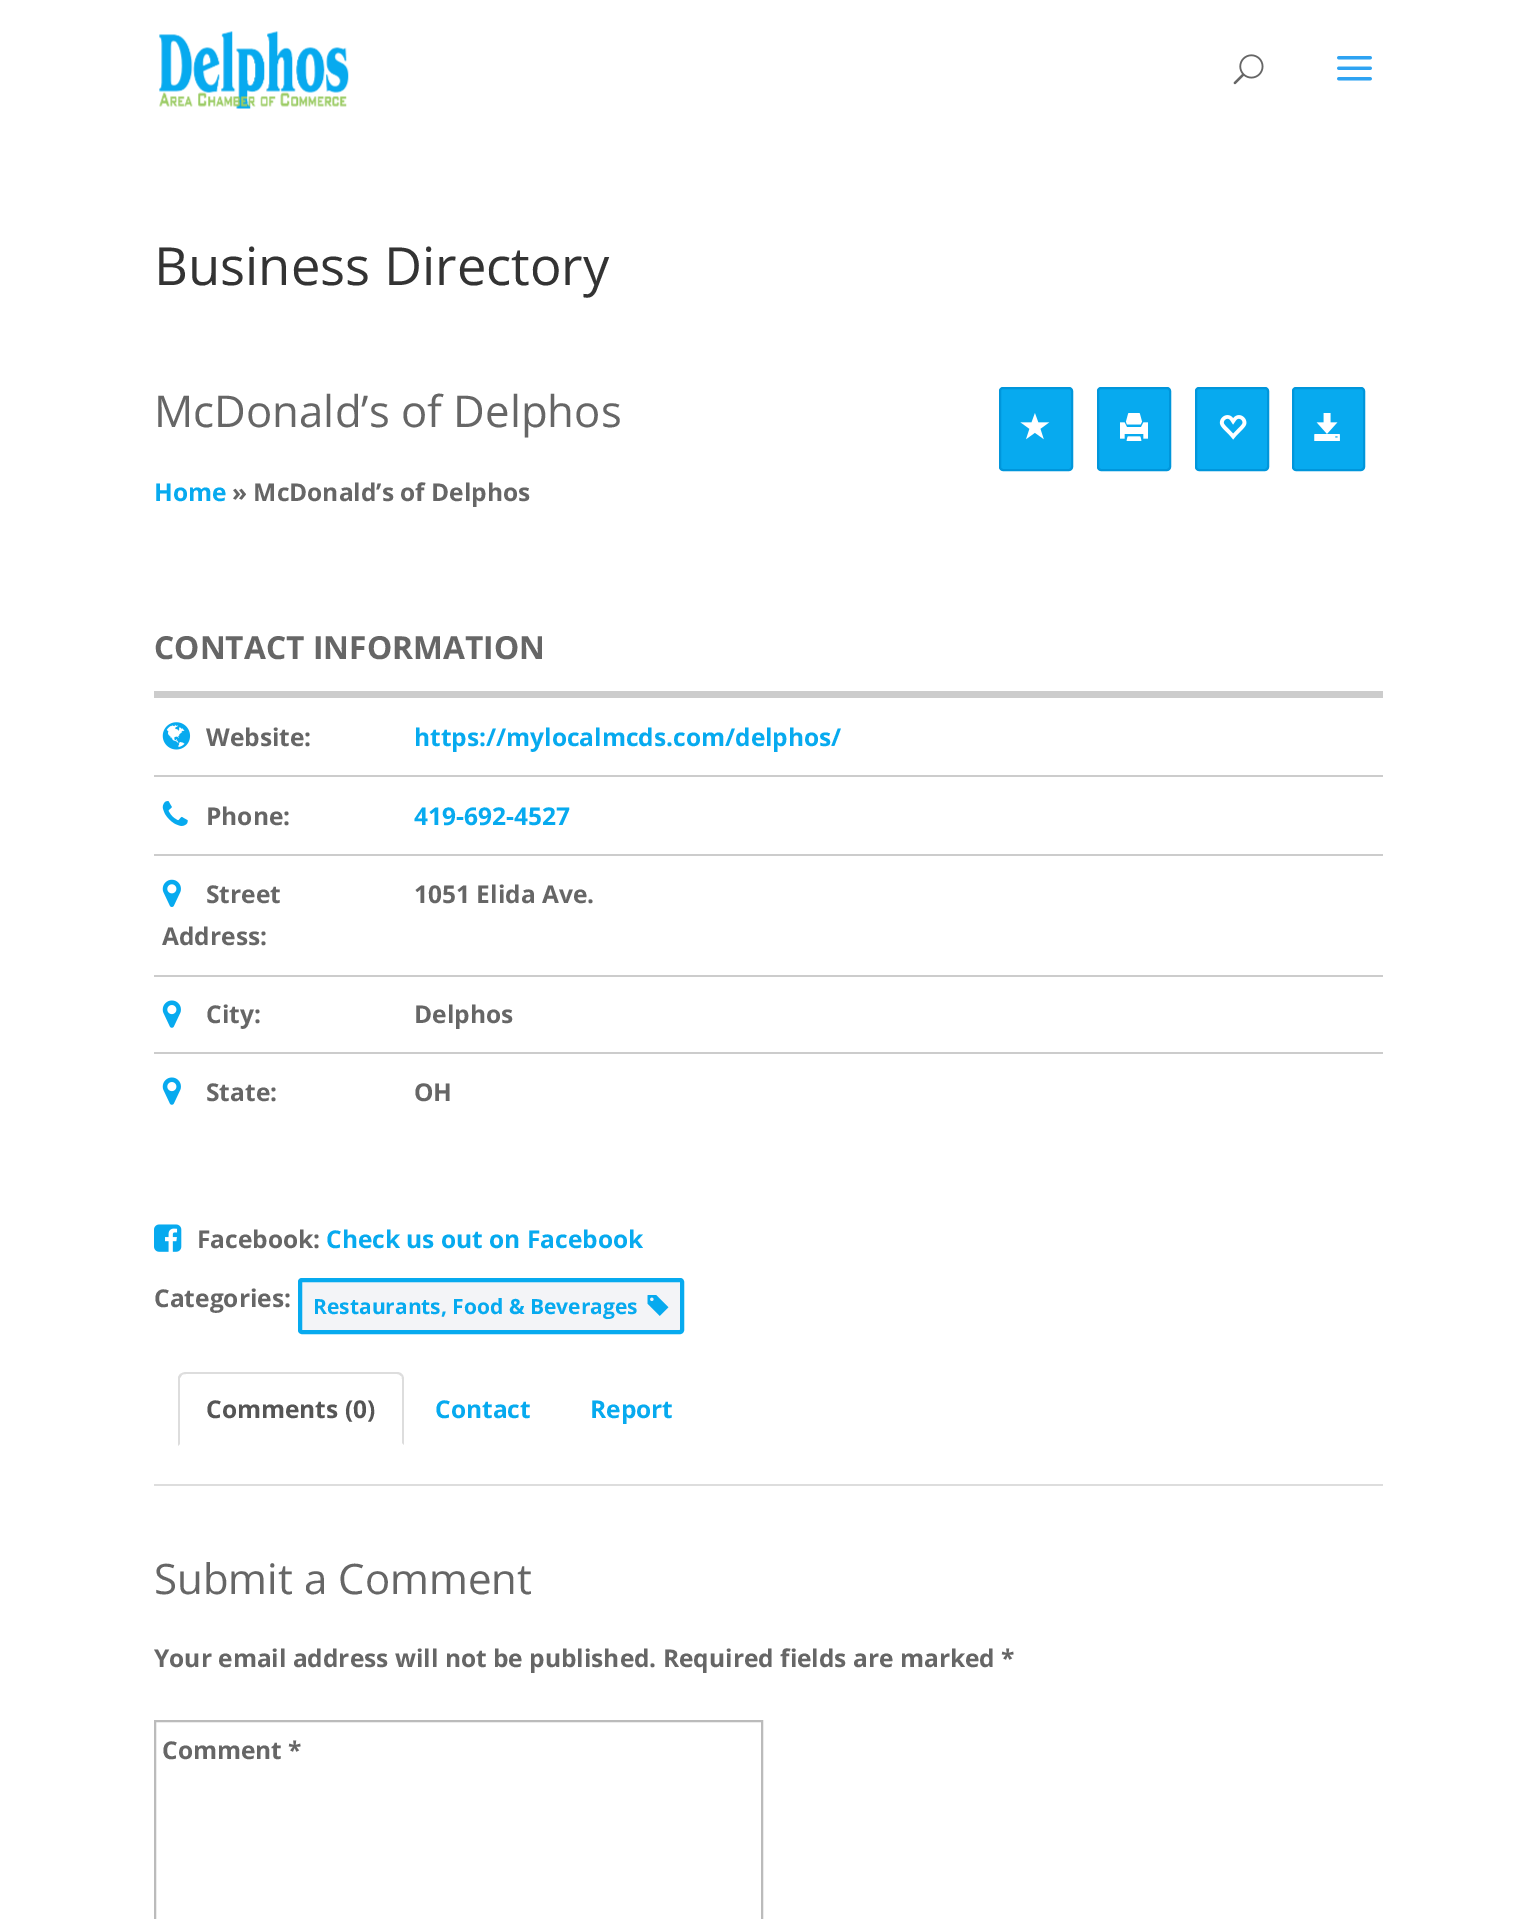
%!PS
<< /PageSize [1535 1919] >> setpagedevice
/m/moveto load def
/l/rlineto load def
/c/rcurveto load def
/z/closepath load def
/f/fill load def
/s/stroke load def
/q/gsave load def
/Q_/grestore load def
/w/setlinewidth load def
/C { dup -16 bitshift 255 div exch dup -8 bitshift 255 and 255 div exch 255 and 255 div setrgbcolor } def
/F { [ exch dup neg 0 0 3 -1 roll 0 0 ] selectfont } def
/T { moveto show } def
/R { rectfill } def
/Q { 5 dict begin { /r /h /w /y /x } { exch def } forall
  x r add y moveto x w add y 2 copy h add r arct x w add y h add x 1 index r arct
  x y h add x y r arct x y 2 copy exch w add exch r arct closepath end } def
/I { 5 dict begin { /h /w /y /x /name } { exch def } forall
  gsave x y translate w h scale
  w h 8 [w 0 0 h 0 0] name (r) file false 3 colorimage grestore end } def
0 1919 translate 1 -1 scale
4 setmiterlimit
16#FFFFFF C
0 0 1535 1919 R
(1.rgb) 159 31 190 78 I
(2.rgb) 1233 54 31 31 I
(3.rgb) 1337 56 35 25 I
/OpenSans-Regular 52.5 F
16#333333 C
(Business Directory) 154 285 T
/OpenSans-Regular 43.75 F
16#666666 C
(McDonald’s of Delphos) 154 427 T
16#07AAEF C
1000 388 72 82 3 Q q f Q_
16#0096DB C
2 w
s
(4.rgb) 1020 413 30 27 I
16#07AAEF C
1098 388 72 82 3 Q q f Q_
16#0096DB C
s
(5.rgb) 1120 413 28 28 I
16#07AAEF C
1196 388 72 82 3 Q q f Q_
16#0096DB C
s
(6.rgb) 1219 415 28 25 I
16#07AAEF C
1293 388 71 82 3 Q q f Q_
16#0096DB C
s
(7.rgb) 1314 413 26 28 I
/OpenSans-Bold 24.5 F
16#07AAEF C
(Home) 154 501 T
16#666666 C
(» McDonald’s of Delphos) 232 501 T
16#CCCCCC C
154 691 1229 7 R
/OpenSans-Bold 31.8 F
16#666666 C
(CONTACT INFORMATION) 154 659 T
16#CCCCCC C
154 775 1229 2 R
(8.rgb) 162 722 29 28 I
/OpenSans-Bold 24.5 F
16#666666 C
(Website:) 206 746 T
16#07AAEF C
(https://mylocalmcds.com/delphos/) 414 746 T
16#CCCCCC C
154 854 1229 2 R
(9.rgb) 162 801 26 25 I
16#666666 C
(Phone:) 206 825 T
16#07AAEF C
(419-692-4527) 414 825 T
16#CCCCCC C
154 975 1229 2 R
(10.rgb) 162 879 19 28 I
16#666666 C
(Street) 206 903 T
(Address:) 162 945 T
(1051 Elida Ave.) 414 903 T
16#CCCCCC C
154 1052 1229 2 R
(11.rgb) 162 1000 19 28 I
16#666666 C
(City:) 206 1023 T
(Delphos) 414 1023 T
(11.rgb) 162 1077 19 28 I
(State:) 206 1101 T
(OH) 414 1101 T
(12.rgb) 154 1224 28 28 I
(Facebook:) 197 1248 T
16#07AAEF C
(Check us out on Facebook) 326 1248 T
16#666666 C
(Categories:) 154 1307 T
16#F3F4F7 C
300 1280 382 52 2 Q q f Q_
16#07AAEF C
4 w
s
/OpenSans-Bold 21 F
(Restaurants, Food & Beverages) 313 1314 T
(13.rgb) 647 1295 22 21 I
16#DDDDDD C
154 1484 1229 2 R
186 1372 m -2 0 -4 1 -6 2 c 2 1 l 1 -1 2 -1 4 -1 c 211 0 l 2 0 3 1 4 2 c 1 -2 l -1 -1 -3 -2 -5 -2 c z f
402 1374 m 1 1 2 3 2 5 c 0 66 l -2 -2 l 0 -64 l 0 -1 0 -3 -1 -3 c z f
178 1446 m 0 -69 l 2 -3 l 2 1 l -2 3 l 0 66 l z f
/OpenSans-Bold 24.5 F
16#555555 C
(Comments \(0\)) 206 1418 T
16#07AAEF C
(Contact) 435 1418 T
(Report) 590 1418 T
/OpenSans-Regular 42 F
16#666666 C
(Submit a Comment) 154 1594 T
/OpenSans-Bold 24.5 F
(Your email address will not be published. Required fields are marked *) 154 1667 T
16#BBBBBB C
2 w
155 1721 607 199 rectstroke
16#666666 C
(Comment *) 162 1759 T
showpage
